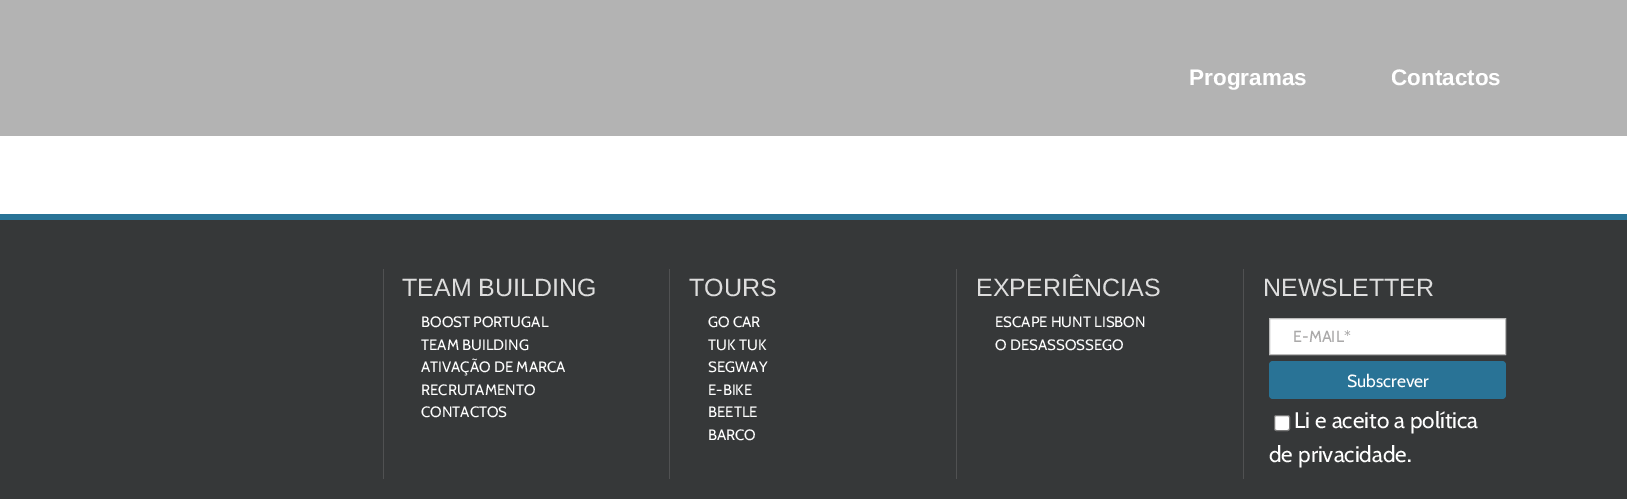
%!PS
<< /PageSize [1627 499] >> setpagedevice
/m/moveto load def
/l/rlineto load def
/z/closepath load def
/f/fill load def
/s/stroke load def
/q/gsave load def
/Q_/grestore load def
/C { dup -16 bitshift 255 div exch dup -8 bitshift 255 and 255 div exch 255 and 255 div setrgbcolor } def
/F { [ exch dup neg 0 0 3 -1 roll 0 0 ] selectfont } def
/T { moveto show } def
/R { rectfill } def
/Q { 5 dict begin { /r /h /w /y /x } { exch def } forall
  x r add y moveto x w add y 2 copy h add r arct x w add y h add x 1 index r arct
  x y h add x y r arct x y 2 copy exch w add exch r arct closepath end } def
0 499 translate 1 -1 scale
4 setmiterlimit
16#FFFFFF C
0 0 1627 499 R
16#B3B3B3 C
0 0 1627 136 R
/LiberationSans-Bold 22.5 F
16#FFFFFF C
(Programas) 1189 85 T
(Contactos) 1391 85 T
16#363839 C
0 220 1627 279 R
16#297396 C
0 214 1627 6 R
16#505152 C
383 269 1 210 R
669 269 1 210 R
/LiberationSans-Regular 25 F
16#DDDDDD C
(TEAM BUILDING) 402 296 T
/Cabin-Regular 15 F
16#FFFFFF C
(BOOST PORTUGAL) 421 327 T
(TEAM BUILDING) 421 350 T
(ATIVAÇÃO DE MARCA) 421 372 T
(RECRUTAMENTO) 421 395 T
(CONTACTOS) 421 417 T
16#505152 C
956 269 1 210 R
/LiberationSans-Regular 25 F
16#DDDDDD C
(TOURS) 689 296 T
/Cabin-Regular 15 F
16#FFFFFF C
(GO CAR) 708 327 T
(TUK TUK) 708 350 T
(SEGWAY) 708 372 T
(E-BIKE) 708 395 T
(BEETLE) 708 417 T
(BARCO) 708 440 T
16#505152 C
1243 269 1 210 R
/LiberationSans-Regular 25 F
16#DDDDDD C
(EXPERIÊNCIAS) 976 296 T
/Cabin-Regular 15 F
16#FFFFFF C
(ESCAPE HUNT LISBON) 995 327 T
(O DESASSOSSEGO) 995 350 T
/LiberationSans-Regular 25 F
16#DDDDDD C
(NEWSLETTER) 1263 296 T
16#FFFFFF C
1269.5 318.5 m 236 0 l 0 36 l -236 0 l z q f Q_
16#BBBBBB C
s
/Cabin-Regular 16 F
16#AAA9A9 C
(E-MAIL*) 1293 342 T
16#297396 C
1269 361 237 38 4 Q f
/Cabin-Regular 17.5 F
16#FFFFFF C
(Subscrever) 1347 387 T
1274.5 415.5 15 15 2 Q q f Q_
16#767676 C
s
/Cabin-Regular 22.5 F
16#FFFFFF C
(Li e aceito a política) 1294 428 T
(de privacidade.) 1269 462 T
showpage
